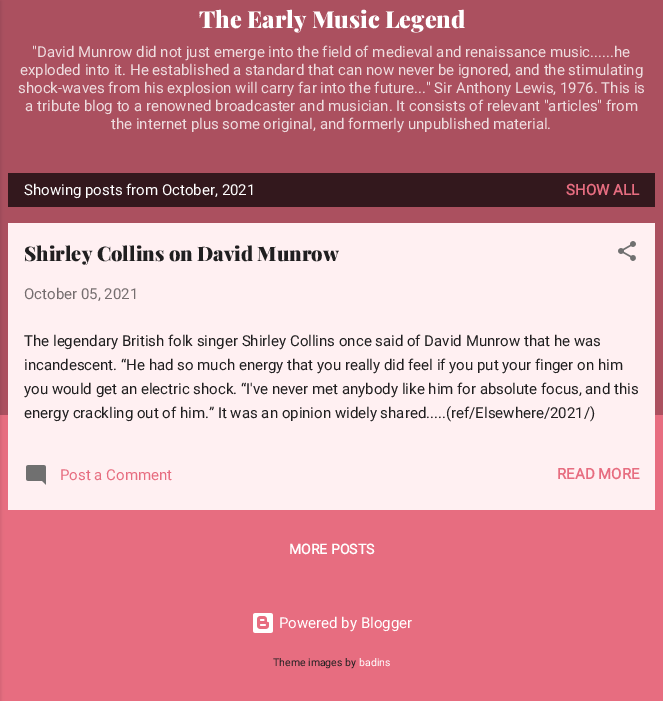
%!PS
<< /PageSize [663 701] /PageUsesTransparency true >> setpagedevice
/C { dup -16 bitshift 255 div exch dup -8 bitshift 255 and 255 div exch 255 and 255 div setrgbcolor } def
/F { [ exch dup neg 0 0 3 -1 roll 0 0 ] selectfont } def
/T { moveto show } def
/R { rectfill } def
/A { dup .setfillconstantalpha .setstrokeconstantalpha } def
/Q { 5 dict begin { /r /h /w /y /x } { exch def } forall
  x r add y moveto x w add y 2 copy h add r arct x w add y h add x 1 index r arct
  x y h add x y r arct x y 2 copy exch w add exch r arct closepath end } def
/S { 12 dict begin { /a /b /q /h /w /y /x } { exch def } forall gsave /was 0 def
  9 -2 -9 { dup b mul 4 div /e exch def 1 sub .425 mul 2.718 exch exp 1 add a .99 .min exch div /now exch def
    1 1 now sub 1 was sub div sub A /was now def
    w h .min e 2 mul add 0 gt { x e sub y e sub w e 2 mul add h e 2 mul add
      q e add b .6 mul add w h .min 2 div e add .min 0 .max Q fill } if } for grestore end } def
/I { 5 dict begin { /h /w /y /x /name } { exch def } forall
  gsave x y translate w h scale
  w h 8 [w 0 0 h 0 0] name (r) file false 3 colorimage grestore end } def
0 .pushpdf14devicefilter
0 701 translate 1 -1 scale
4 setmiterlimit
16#E76D80 C
0 0 663 701 R
16#AB505F C
0 0 663 415 R
16#000000 C
-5 1 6 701 0 1.5 .1 S
/PlayfairDisplay-Black 23.5 F
16#FFFFFF C
(The Early Music Legend) 199 28 T
/Roboto-Regular 15 F
16#EEDCDF C
("David Munrow did not just emerge into the field of medieval and renaissance music......he) 32 57 T
(exploded into it. He established a standard that can now never be ignored, and the stimulating) 20 75 T
(shock-waves from his explosion will carry far into the future..." Sir Anthony Lewis, 1976. This is) 18 93 T
(a tribute blog to a renowned broadcaster and musician. It consists of relevant "articles" from) 25 111 T
(the internet plus some original, and formerly unpublished material.) 111 129 T
16#33181D C
8 173 647 34 R
16#FFFFFF C
(Showing posts from October, 2021) 24 195 T
/Roboto-Bold 15 F
16#E76D80 C
(SHOW ALL) 566 195 T
16#FFF0F2 C
8 223 647 287 R
/PlayfairDisplay-Black 20 F
16#201F20 C
(Shirley Collins on David Munrow) 24 261 T
(1.rgb) 618 241 18 20 I
/Roboto-Regular 15 F
16#756E6F C
(October 05, 2021) 24 299 T
16#201F20 C
(The legendary British folk singer Shirley Collins once said of David Munrow that he was) 24 346 T
(incandescent. “He had so much energy that you really did feel if you put your finger on him) 24 370 T
(you would get an electric shock. “I've never met anybody like him for absolute focus, and this) 24 394 T
(energy crackling out of him.” It was an opinion widely shared.....\(ref/Elsewhere/2021/\)) 24 418 T
(2.rgb) 26 465 20 20 I
16#E76D80 C
(Post a Comment) 60 480 T
/Roboto-Bold 15 F
(READ MORE) 557 479 T
/Roboto-Bold 14 F
16#FFFFFF C
(MORE POSTS) 289 554 T
(3.rgb) 253 613 20 20 I
/Roboto-Regular 15 F
(Powered by Blogger) 279 628 T
/Roboto-Regular 10.5 F
16#201F20 C
(Theme images by) 273 666 T
16#FFFFFF C
(badins) 359 666 T
.poppdf14devicefilter showpage
